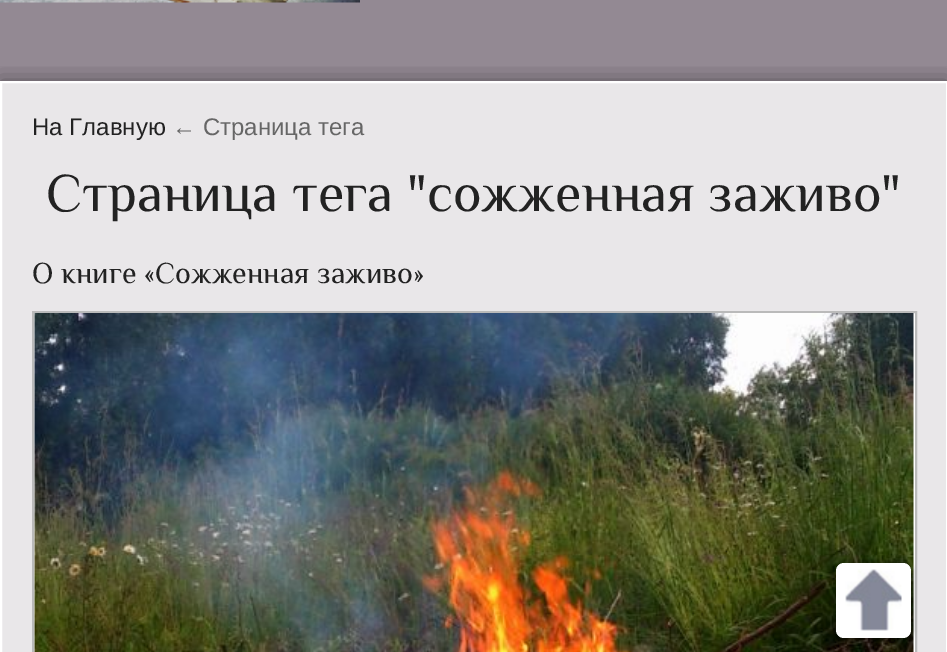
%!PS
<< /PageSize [947 652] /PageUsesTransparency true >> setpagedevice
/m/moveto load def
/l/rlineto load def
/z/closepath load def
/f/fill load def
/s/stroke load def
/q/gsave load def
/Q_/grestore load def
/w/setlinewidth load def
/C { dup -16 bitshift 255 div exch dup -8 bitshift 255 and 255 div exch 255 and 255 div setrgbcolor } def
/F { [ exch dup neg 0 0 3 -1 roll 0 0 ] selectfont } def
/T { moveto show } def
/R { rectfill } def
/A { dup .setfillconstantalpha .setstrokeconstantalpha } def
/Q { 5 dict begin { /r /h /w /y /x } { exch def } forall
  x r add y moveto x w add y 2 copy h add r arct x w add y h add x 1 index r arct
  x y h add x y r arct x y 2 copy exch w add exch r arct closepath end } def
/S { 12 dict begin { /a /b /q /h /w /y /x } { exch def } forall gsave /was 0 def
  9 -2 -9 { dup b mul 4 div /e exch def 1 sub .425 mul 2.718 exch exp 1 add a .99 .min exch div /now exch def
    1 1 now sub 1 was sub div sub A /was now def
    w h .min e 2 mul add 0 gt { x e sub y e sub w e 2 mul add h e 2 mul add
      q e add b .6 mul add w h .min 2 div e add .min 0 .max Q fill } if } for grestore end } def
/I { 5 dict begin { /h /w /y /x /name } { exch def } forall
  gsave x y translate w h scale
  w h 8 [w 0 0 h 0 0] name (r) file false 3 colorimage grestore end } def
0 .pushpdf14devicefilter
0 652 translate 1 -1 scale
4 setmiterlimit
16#938993 C
0 0 947 652 R
(1.rgb) 0 0 360 3 I
q
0 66 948 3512 rectclip
16#000000 C
0 81 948 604 0 11 .4 S
Q_
16#E9E7E9 C
1 82 m 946 0 l 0 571 l -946 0 l z q f Q_
16#FFFFFF C
2 w
s
/LiberationSans-Regular 24 F
16#222222 C
(На Главную) 32 135 T
16#666666 C
(← Страница тега) 172 135 T
/Philosopher-Regular 54 F
16#222222 C
(Страница тега "сожженная заживо") 46 211 T
/Philosopher-Regular 30 F
(О книге «Сожженная заживо») 32 283 T
16#FFFFFF C
33 312 m 883 0 l 0 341 l -883 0 l z q f Q_
16#BABABA C
s
(2.rgb) 34 313 880 339 I
16#000000 C
833 560 81 81 11 1.5 .2 S
16#FFFFFF C
836 563 75 75 8 Q f
(3.rgb) 845 569 57 62 I
.poppdf14devicefilter showpage
